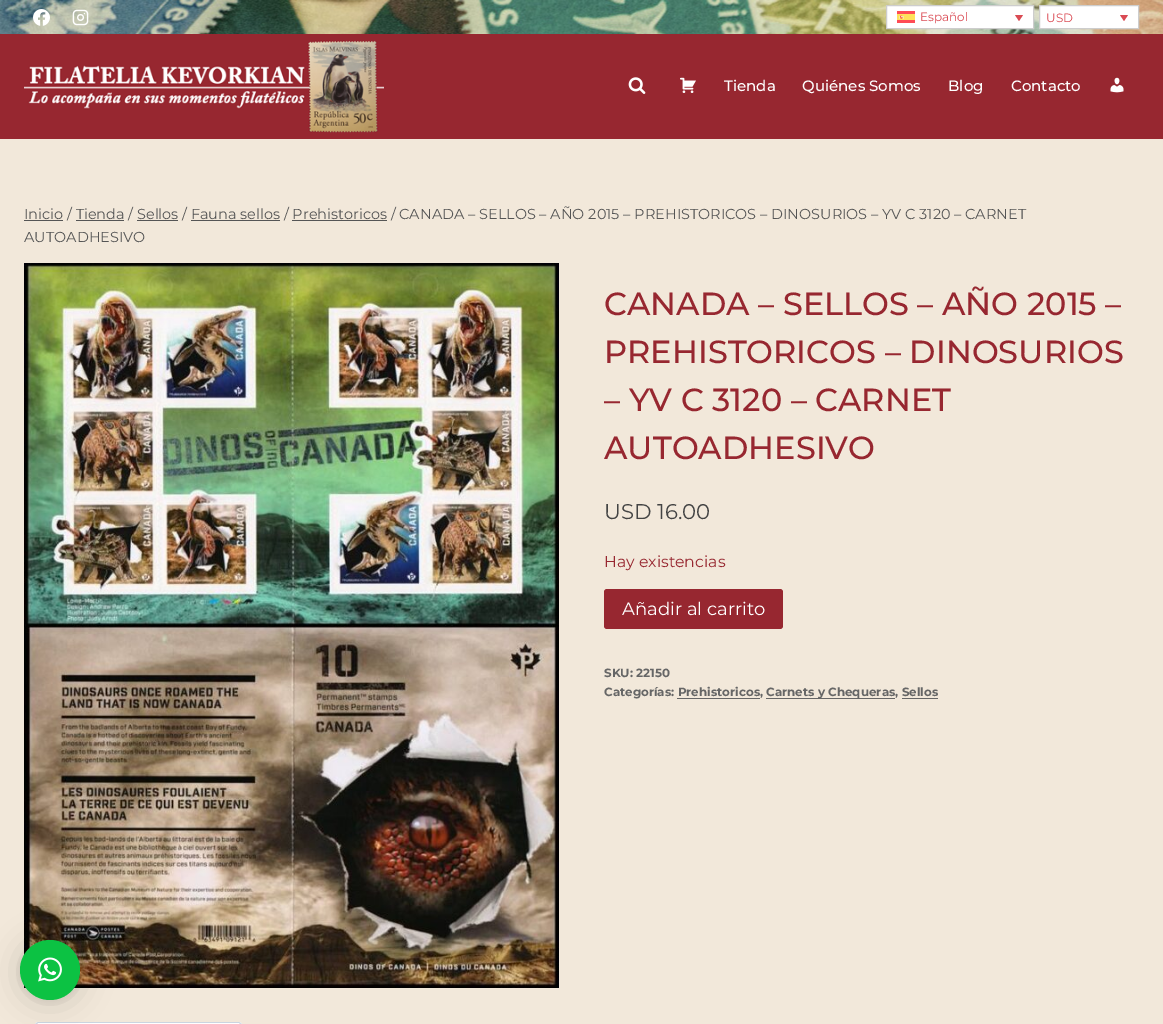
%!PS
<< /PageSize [1163 1024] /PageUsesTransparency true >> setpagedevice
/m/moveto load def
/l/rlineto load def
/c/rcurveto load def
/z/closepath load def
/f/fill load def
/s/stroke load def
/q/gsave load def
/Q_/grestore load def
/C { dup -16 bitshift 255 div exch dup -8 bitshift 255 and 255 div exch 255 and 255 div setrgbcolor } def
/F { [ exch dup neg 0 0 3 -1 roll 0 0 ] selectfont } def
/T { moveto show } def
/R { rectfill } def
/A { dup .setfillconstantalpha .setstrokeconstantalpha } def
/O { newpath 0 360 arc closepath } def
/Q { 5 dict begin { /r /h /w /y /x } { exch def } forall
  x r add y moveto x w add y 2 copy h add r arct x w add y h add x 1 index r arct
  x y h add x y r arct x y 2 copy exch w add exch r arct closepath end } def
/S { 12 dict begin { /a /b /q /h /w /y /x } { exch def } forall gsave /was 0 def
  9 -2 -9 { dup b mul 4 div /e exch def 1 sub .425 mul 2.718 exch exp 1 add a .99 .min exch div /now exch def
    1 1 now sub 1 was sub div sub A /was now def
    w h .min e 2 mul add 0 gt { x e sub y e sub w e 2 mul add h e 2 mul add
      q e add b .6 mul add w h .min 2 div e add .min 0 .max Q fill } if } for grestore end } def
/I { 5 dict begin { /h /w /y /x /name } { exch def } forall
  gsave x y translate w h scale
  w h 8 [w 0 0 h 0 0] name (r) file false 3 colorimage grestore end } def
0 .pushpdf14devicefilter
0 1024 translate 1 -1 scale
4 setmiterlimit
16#F2E8DA C
0 0 1163 1024 R
(1.rgb) 0 0 1163 34 I
(2.rgb) 33 9 17 17 I
(3.rgb) 72 9 17 17 I
16#FFFFFF C
886.5 5.5 m 147 0 l 0 23 l -147 0 l z q f Q_
16#CDCDCD C
s
(4.rgb) 897 11 18 12 I
/Montserrat-Regular 12 F
16#DA4B54 C
(Español) 920 21 T
1015 15 m 8 0 l -4 6 l z f
16#FFFFFF C
1039.5 5.5 m 99 0 l 0 23 l -99 0 l z q f Q_
16#CDCDCD C
s
16#DA4B54 C
(USD) 1046 22 T
1120 15 m 8 0 l -4 6 l z f
16#972730 C
0 34 1163 105 R
(5.rgb) 24 40 360 93 I
(6.rgb) 628 77 18 17 I
(7.rgb) 680 77 16 16 I
/Montserrat-Medium 15 F
16#FFFFFF C
(Tienda) 724 91 T
(Quiénes Somos) 802 91 T
(Blog) 948 91 T
(Contacto) 1011 91 T
(8.rgb) 1110 77 14 16 I
16#555555 C
24 220 39 1 R
/Montserrat-Regular 14.45 F
(Inicio / Tienda / Sellos / Fauna sellos / Prehistoricos / CANADA – SELLOS – AÑO 2015 – PREHISTORICOS – DINOSURIOS – YV C 3120 – CARNET) 24 219 T
76 220 48 1 R
137 220 41 1 R
191 220 89 1 R
292 220 95 1 R
(AUTOADHESIVO) 24 242 T
(9.rgb) 24 263 535 725 I
/Montserrat-Medium 32 F
16#972730 C
(CANADA – SELLOS – AÑO 2015 –) 604 315 T
(PREHISTORICOS – DINOSURIOS) 604 363 T
(– YV C 3120 – CARNET) 604 411 T
(AUTOADHESIVO) 604 459 T
/Montserrat-Regular 21.25 F
16#444444 C
(USD 16.00) 604 519 T
/Montserrat-Regular 15.75 F
16#972730 C
(Hay existencias) 604 567 T
604 589 179 40 3 Q f
/Montserrat-Regular 18 F
16#FFFFFF C
(Añadir al carrito) 622 615 T
/Montserrat-Bold 11.9 F
16#666666 C
(SKU: 22150) 604 677 T
(Categorías: Prehistoricos,) 604 696 T
766 698 129 1 R
(Carnets y Chequeras, Sellos) 766 696 T
677 698 83 1 R
902 698 36 1 R
16#FFFFFF C
38 1022 m 201 0 l 1.5 0 3 1.5 3 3 c 0 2 l -207 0 l 0 -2 l 0 -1.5 1.5 -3 3 -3 c z f
16#CBD5E0 C
38 1022 m -2 1 l 1 1 l 1 -1 l 67 0 l 134 0 l 1 1 l 1 -1 l -2 -1 l z f
242 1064 m 0 -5 1 -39 -1 -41 c -1 1 l 2 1 1 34 1 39 c z f
35 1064 m 1 -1 l 0 -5 -1 -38 1 -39 c -1 -1 l -1 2 l z f
16#000000 C
20 942 60 60 30 16 .16 S
20 941 60 60 30 3 .06 S
16#0CC243 C
50 970 30 O f
(10.rgb) 38 957 24 25 I
.poppdf14devicefilter showpage
